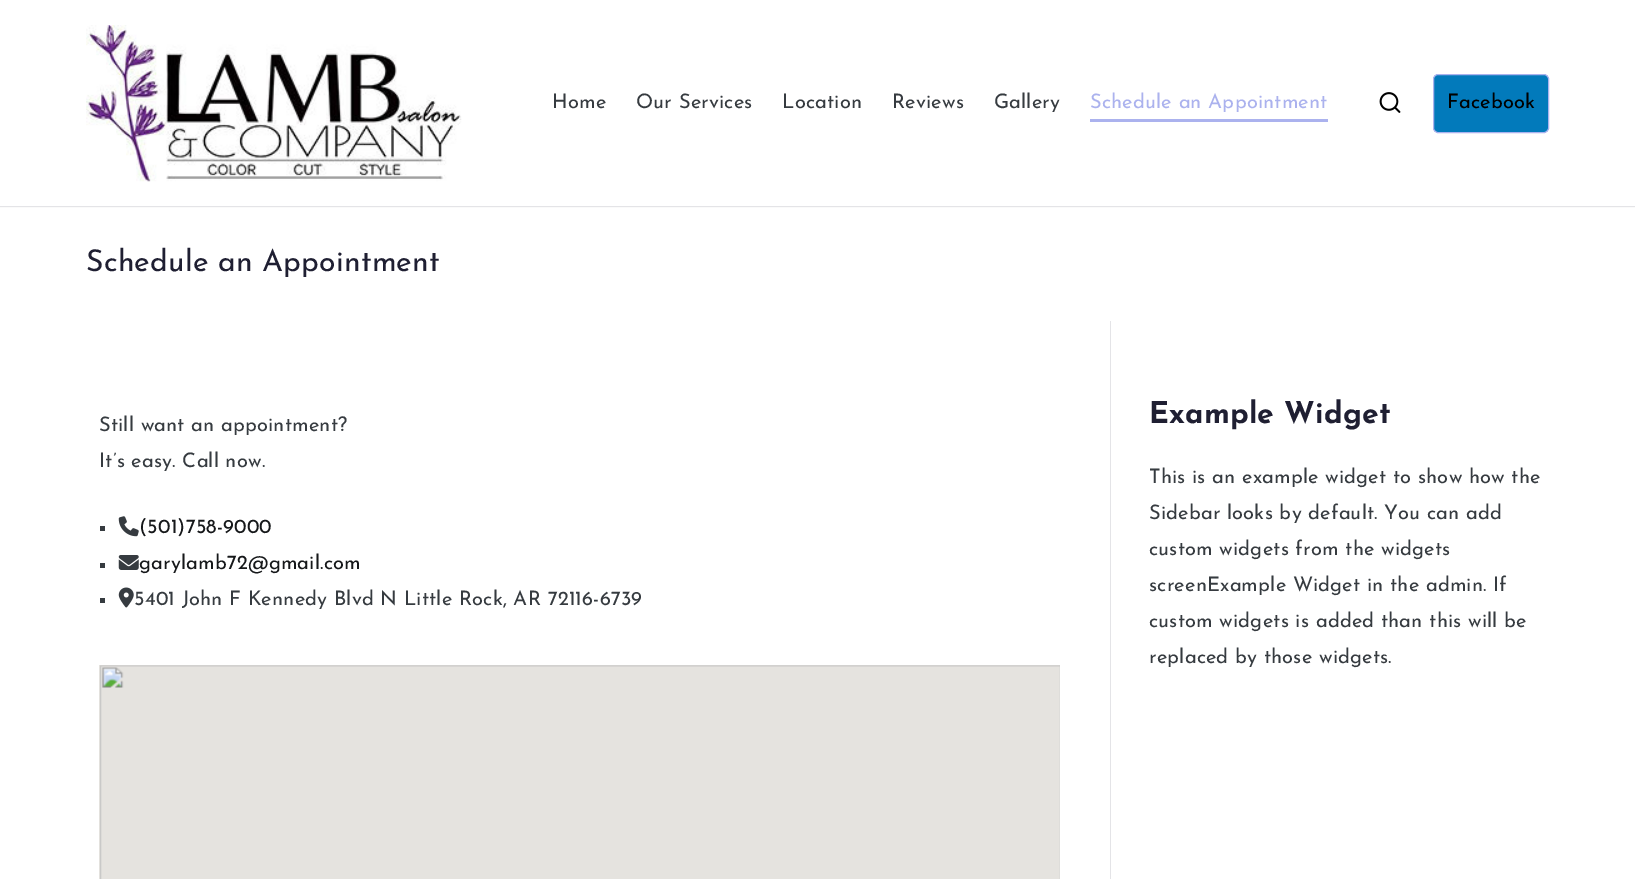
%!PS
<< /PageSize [1635 879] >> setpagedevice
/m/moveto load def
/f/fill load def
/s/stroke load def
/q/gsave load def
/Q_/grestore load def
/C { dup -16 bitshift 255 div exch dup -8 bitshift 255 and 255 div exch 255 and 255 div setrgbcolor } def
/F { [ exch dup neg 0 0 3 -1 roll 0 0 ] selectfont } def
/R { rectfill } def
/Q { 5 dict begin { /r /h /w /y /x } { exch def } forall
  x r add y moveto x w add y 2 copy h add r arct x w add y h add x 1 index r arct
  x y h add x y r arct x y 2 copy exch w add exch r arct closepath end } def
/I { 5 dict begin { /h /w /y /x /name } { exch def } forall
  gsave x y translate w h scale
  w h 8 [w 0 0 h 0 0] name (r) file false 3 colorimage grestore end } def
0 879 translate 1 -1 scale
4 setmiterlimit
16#FAFAFA C
0 0 1635 879 R
16#E4E4E7 C
0 206 1635 1 R
16#FFFFFF C
0 0 1635 206 R
(1.rgb) 86 25 376 157 I
/JosefinSans-Regular 20 F
16#363B40 C
552 108 m .2 0 (Home) ashow
636 108 m .2 0 (Our Services) ashow
782 108 m .2 0 (Location) ashow
892 108 m .2 0 (Reviews) ashow
994 108 m .2 0 (Gallery) ashow
16#ABB2EE C
1090 108 m .2 0 (Schedule an Appointment) ashow
1090 119 238 3 R
(2.rgb) 1379 92 22 21 I
16#027ABB C
1433.5 74.5 115 58 4.5 Q q f Q_
16#ABB2EE C
s
16#000000 C
1447 108 m .2 0 (Facebook) ashow
16#FFFFFF C
0 208 1635 671 R
/JosefinSans-Regular 30 F
16#1F1F32 C
86 271 m .2 0 (Schedule an Appointment) ashow
/JosefinSans-Regular 20 F
16#363B40 C
99 431 m .2 0 (Still want an appointment?) ashow
99 467 m .2 0 (It’s easy. Call now.) ashow
100 526 5 5 R
(3.rgb) 118 516 21 21 I
16#16181A C
139 533 m .2 0 (\(501\)758-9000) ashow
16#363B40 C
100 563 5 5 R
(4.rgb) 118 555 21 15 I
16#16181A C
139 569 m .2 0 (garylamb72@gmail.com) ashow
16#363B40 C
100 598 5 5 R
(5.rgb) 118 587 16 21 I
134 605 m .2 0 (5401 John F Kennedy Blvd N Little Rock, AR 72116-6739) ashow
(6.rgb) 99 665 961 214 I
16#E4E4E7 C
1110 321 1 558 R
/JosefinSans-Bold 30 F
16#1F1F32 C
1149 423 m .2 0 (Example Widget) ashow
/JosefinSans-Regular 20 F
16#363B40 C
1149 483 m .2 0 (This is an example widget to show how the) ashow
1149 519 m .2 0 (Sidebar looks by default. You can add) ashow
1149 555 m .2 0 (custom widgets from the widgets) ashow
1149 591 m .2 0 (screenExample Widget in the admin. If) ashow
1149 627 m .2 0 (custom widgets is added than this will be) ashow
1149 663 m .2 0 (replaced by those widgets.) ashow
showpage
